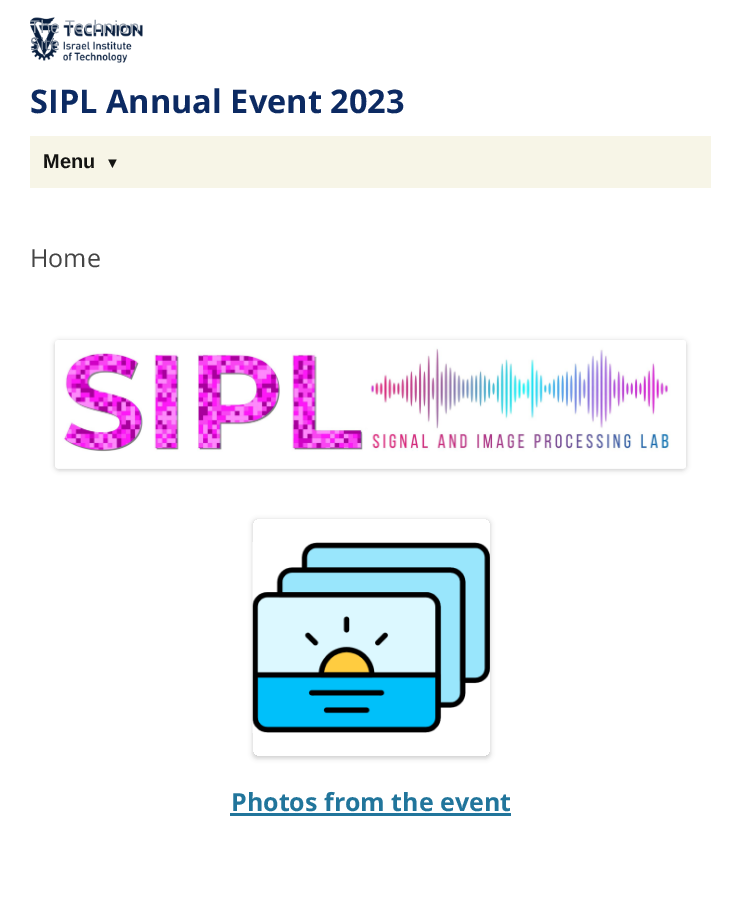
%!PS
<< /PageSize [741 901] /PageUsesTransparency true >> setpagedevice
/m/moveto load def
/l/rlineto load def
/c/rcurveto load def
/z/closepath load def
/q/gsave load def
/Q_/grestore load def
/C { dup -16 bitshift 255 div exch dup -8 bitshift 255 and 255 div exch 255 and 255 div setrgbcolor } def
/F { [ exch dup neg 0 0 3 -1 roll 0 0 ] selectfont } def
/T { moveto show } def
/R { rectfill } def
/A { dup .setfillconstantalpha .setstrokeconstantalpha } def
/Q { 5 dict begin { /r /h /w /y /x } { exch def } forall
  x r add y moveto x w add y 2 copy h add r arct x w add y h add x 1 index r arct
  x y h add x y r arct x y 2 copy exch w add exch r arct closepath end } def
/S { 12 dict begin { /a /b /q /h /w /y /x } { exch def } forall gsave /was 0 def
  9 -2 -9 { dup b mul 4 div /e exch def 1 sub .425 mul 2.718 exch exp 1 add a .99 .min exch div /now exch def
    1 1 now sub 1 was sub div sub A /was now def
    w h .min e 2 mul add 0 gt { x e sub y e sub w e 2 mul add h e 2 mul add
      q e add b .6 mul add w h .min 2 div e add .min 0 .max Q fill } if } for grestore end } def
/I { 5 dict begin { /h /w /y /x /name } { exch def } forall
  gsave x y translate w h scale
  w h 8 [w 0 0 h 0 0] name (r) file false 3 colorimage grestore end } def
0 .pushpdf14devicefilter
0 901 translate 1 -1 scale
4 setmiterlimit
16#FFFFFF C
0 0 741 901 R
(1.rgb) 30 17 113 46 I
/OpenSans-Regular 17.5 F
16#96A0AD C
(The Technion) 30 33 T
16#768294 C
(Site) 30 50 T
/OpenSans-Bold 32.5 F
16#0C2A62 C
(SIPL Annual Event 2023) 30 113 T
16#F7F5E7 C
30 136 681 52 R
/LiberationSans-Bold 20 F
16#141412 C
(Menu) 43 168 T
/LiberationSans-Bold 15 F
(▼) 105 168 T
/OpenSans-Regular 25 F
16#444444 C
(Home) 30 267 T
16#000000 C
55 341 631 129 4 2.5 .2 S
(2.rgb) 55 340 631 129 I
q
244 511 m 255 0 l 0 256 l -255 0 l z 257 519 m 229 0 l 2 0 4 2 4 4 c 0 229 l 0 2 -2 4 -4 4 c -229 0 l -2 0 -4 -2 -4 -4 c 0 -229 l 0 -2 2 -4 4 -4 c z eoclip newpath
253 520 237 238 4 2.5 .2 S
Q_
(3.rgb) 252 542 238 191 I
/OpenSans-Bold 25 F
16#21759B C
(Photos from the event) 231 811 T
230 813 281 3 R
.poppdf14devicefilter showpage
